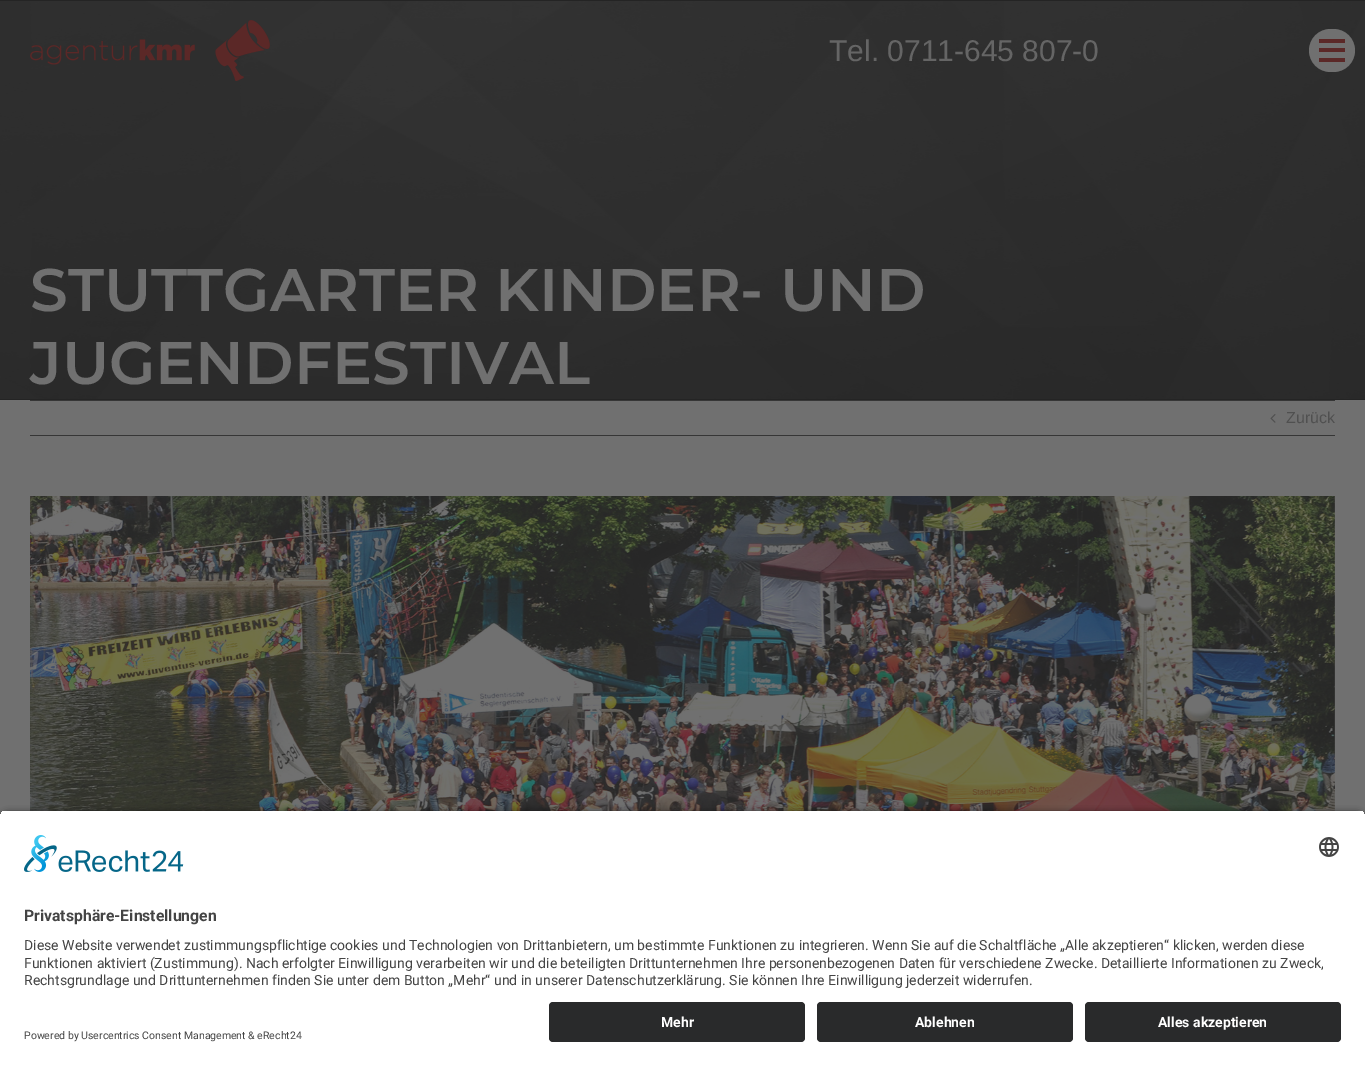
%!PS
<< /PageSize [1365 1066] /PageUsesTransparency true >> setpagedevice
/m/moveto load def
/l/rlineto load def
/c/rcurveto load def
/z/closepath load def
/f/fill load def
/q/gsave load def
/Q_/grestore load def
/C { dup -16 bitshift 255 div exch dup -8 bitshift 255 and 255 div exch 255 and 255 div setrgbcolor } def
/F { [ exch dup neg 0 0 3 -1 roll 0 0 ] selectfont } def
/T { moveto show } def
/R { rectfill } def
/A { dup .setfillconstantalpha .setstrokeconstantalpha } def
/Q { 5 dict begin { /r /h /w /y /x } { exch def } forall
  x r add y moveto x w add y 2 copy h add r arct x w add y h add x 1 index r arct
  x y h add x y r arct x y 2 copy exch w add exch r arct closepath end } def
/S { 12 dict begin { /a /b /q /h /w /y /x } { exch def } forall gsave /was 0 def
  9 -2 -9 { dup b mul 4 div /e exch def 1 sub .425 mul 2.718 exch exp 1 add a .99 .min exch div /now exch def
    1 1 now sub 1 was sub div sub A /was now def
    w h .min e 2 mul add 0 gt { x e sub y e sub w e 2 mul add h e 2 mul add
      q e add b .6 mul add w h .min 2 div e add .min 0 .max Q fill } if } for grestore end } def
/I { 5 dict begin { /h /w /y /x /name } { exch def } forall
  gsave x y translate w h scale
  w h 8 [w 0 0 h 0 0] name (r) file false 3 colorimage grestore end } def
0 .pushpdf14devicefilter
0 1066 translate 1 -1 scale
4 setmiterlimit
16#707070 C
0 0 1365 1066 R
(2.rgb) 0 1 1365 398 I
(1.rgb) 30 20 240 61 I
/LiberationSans-Regular 30 F
16#656565 C
(Tel. 0711-645 807-0) 829 61 T
16#707070 C
1309 29 46 43 21.5 Q f
16#5B2827 C
1319 39 26 4 R
1319 48 26 4 R
1319 58 26 4 R
16#242424 C
0 0 1365 1 R
0 399 1365 1 R
/Montserrat-SemiBold 60 F
16#707070 C
(STUTTGARTER KINDER- UND) 30 311 T
(JUGENDFESTIVAL) 30 384 T
16#363636 C
30 400 1305 1 R
30 435 1305 1 R
(3.rgb) 1270 414 6 9 I
/LiberationSans-Regular 16 F
16#505050 C
(Zurück) 1286 423 T
(4.rgb) 30 496 1305 315 I
16#000000 C
0 813 1365 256 8 3.5 .8 S
q
8 810 m 1349 0 l 4.5 0 8 3.5 8 8 c 0 176 l -1365 0 l 0 -176 l 0 -4.5 3.5 -8 8 -8 c z clip newpath
16#FFFFFF C
0 811 1365 183 R
Q_
(5.rgb) 24 835 160 37 I
(6.rgb) 1319 837 20 20 I
/Roboto-Bold 15.75 F
16#444444 C
(Privatsphäre-Einstellungen) 24 921 T
/Roboto-Regular 14 F
(Diese Website verwendet zustimmungspflichtige cookies und Technologien von Drittanbietern, um bestimmte Funktionen zu integrieren. Wenn Sie auf die Schaltfläche „Alle akzeptieren“ klicken, werden diese) 24 950 T
(Funktionen aktiviert \(Zustimmung\). Nach erfolgter Einwilligung verarbeiten wir und die beteiligten Drittunternehmen Ihre personenbezogenen Daten für verschiedene Zwecke. Detaillierte Informationen zu Zweck,) 24 968 T
(Rechtsgrundlage und Drittunternehmen finden Sie unter dem Button „Mehr“ und in unserer Datenschutzerklärung. Sie können Ihre Einwilligung jederzeit widerrufen.) 24 985 T
16#FFFFFF C
0 994 1365 72 R
16#292A2B C
549 1002 256 40 4 Q f
/Roboto-Bold 14 F
16#FFFFFF C
(Mehr) 661 1027 T
16#292A2B C
817 1002 256 40 4 Q f
16#FFFFFF C
(Ablehnen) 915 1027 T
16#292A2B C
1085 1002 256 40 4 Q f
16#FFFFFF C
(Alles akzeptieren) 1158 1027 T
/Roboto-Regular 10.5 F
16#444444 C
(Powered by Usercentrics Consent Management & eRecht24) 24 1039 T
.poppdf14devicefilter showpage
